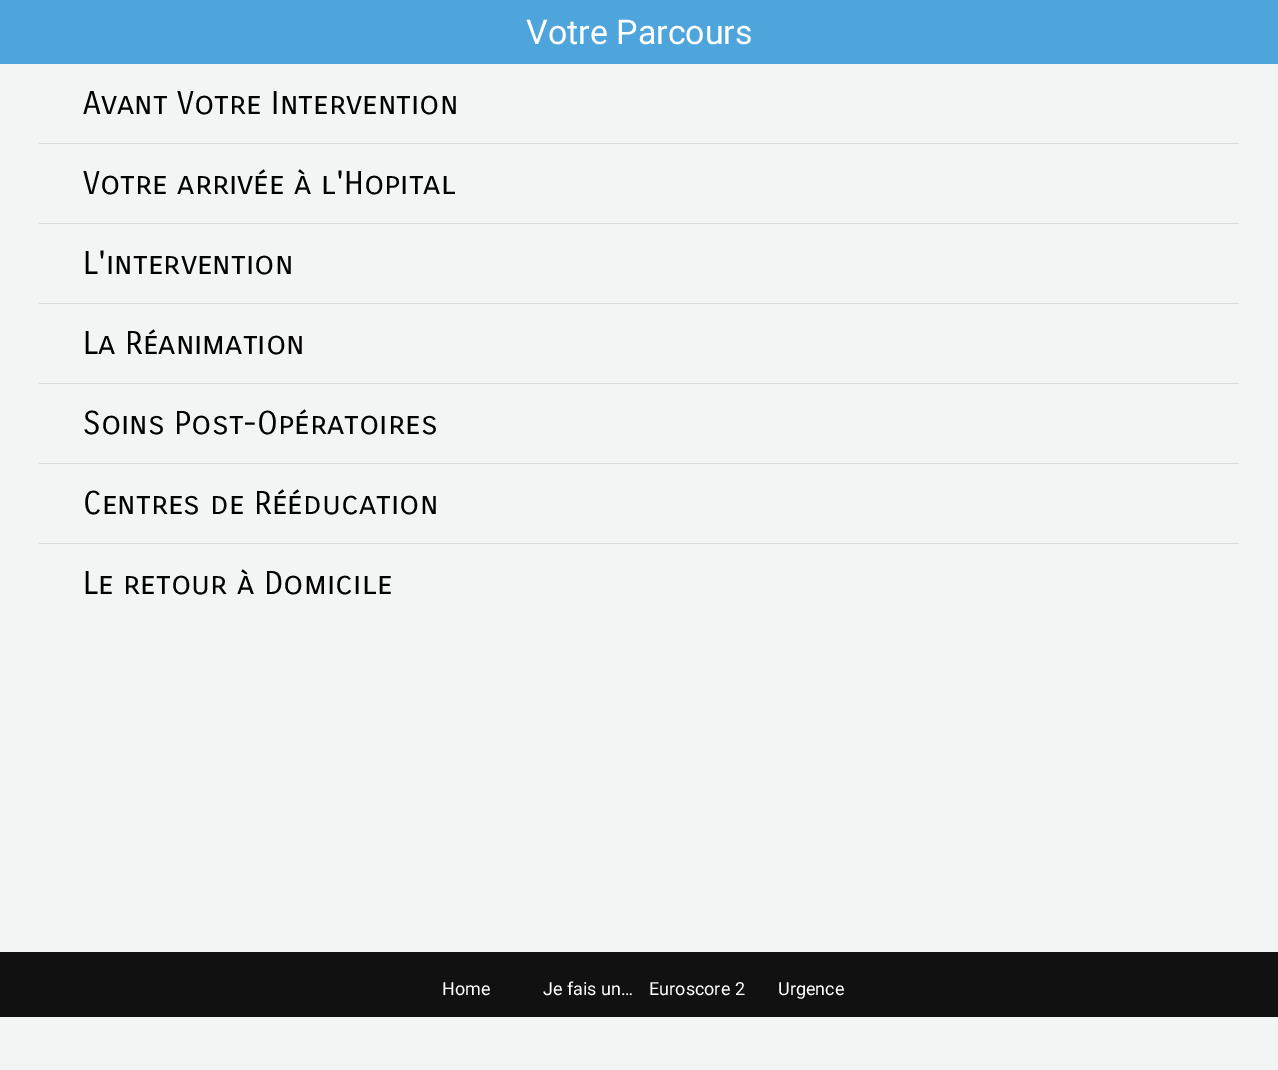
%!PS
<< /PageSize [1278 1070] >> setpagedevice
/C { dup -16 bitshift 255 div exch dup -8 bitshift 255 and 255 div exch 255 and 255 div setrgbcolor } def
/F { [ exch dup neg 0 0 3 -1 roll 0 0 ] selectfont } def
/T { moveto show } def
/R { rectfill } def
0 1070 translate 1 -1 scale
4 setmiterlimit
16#F3F4F4 C
0 0 1278 1070 R
16#DBDBDB C
39 143 1200 1 R
/CarroisGothicSC-Regular 32 F
16#000000 C
(Avant Votre Intervention) 83 114 T
16#DBDBDB C
39 223 1200 1 R
16#000000 C
(Votre arrivée à l'Hopital) 83 194 T
16#DBDBDB C
39 303 1200 1 R
16#000000 C
(L'intervention) 83 274 T
16#DBDBDB C
39 383 1200 1 R
16#000000 C
(La Réanimation) 83 354 T
16#DBDBDB C
39 463 1200 1 R
16#000000 C
(Soins Post-Opératoires) 83 434 T
16#DBDBDB C
39 543 1200 1 R
16#000000 C
(Centres de Rééducation) 83 514 T
(Le retour à Domicile) 83 594 T
16#4EA5DB C
0 0 1278 64 R
/Roboto-Regular 34 F
16#FFFFFF C
(Votre Parcours) 526 44 T
16#111111 C
0 952 1278 65 R
/Roboto-Regular 18 F
16#FFFFFF C
(Home) 442 995 T
(Je fais un…) 543 995 T
(Euroscore 2) 649 995 T
(Urgence) 778 995 T
showpage
